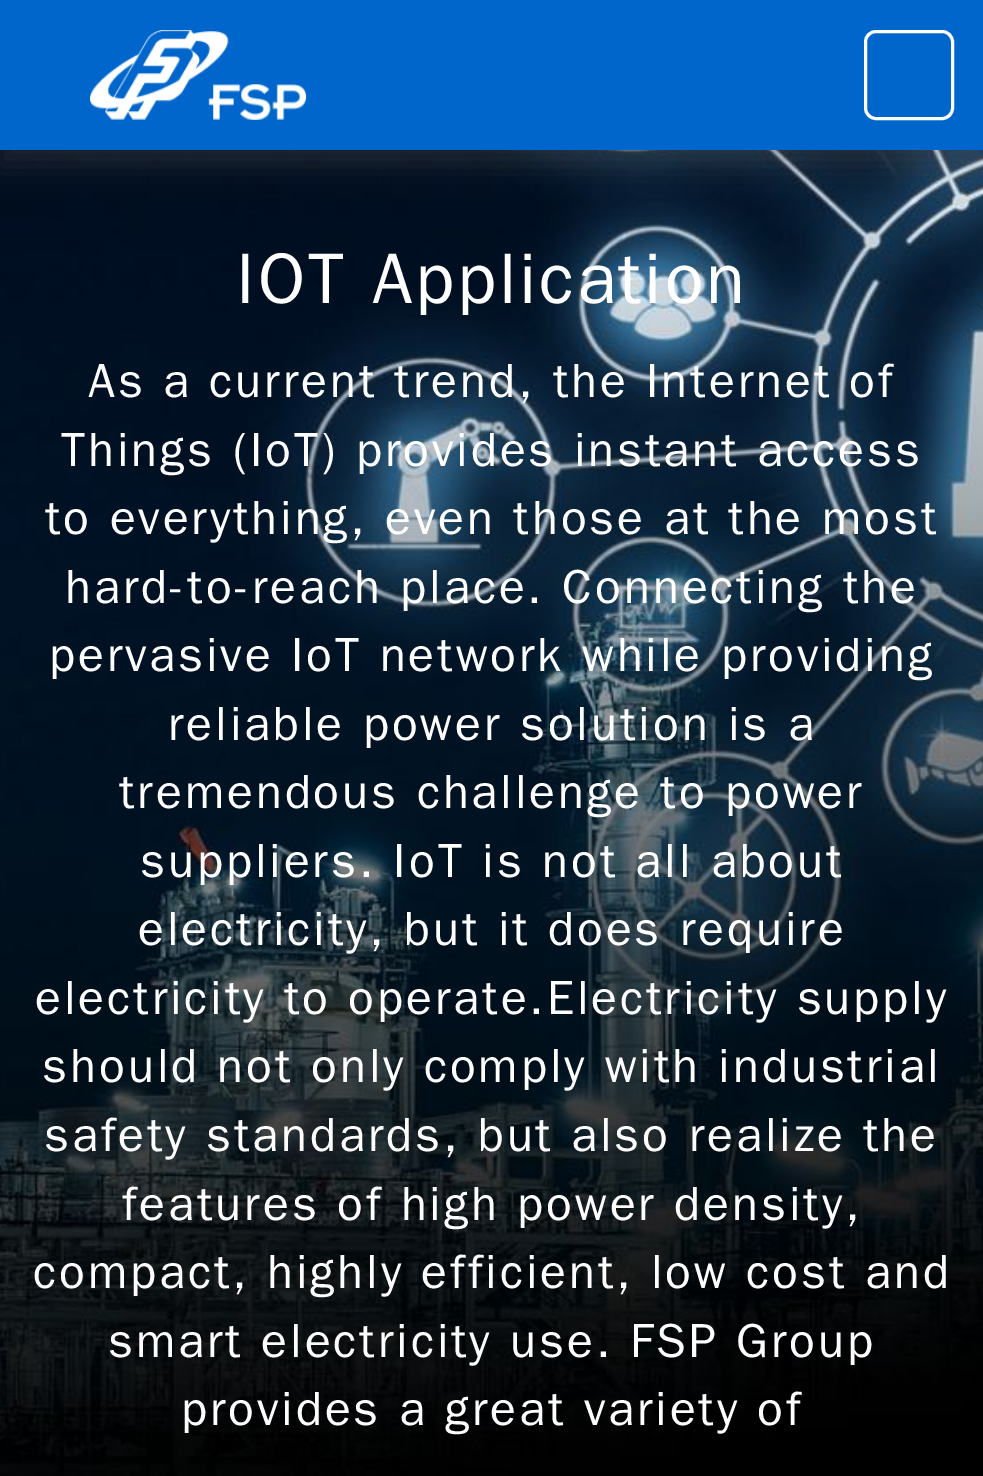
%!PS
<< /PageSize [983 1476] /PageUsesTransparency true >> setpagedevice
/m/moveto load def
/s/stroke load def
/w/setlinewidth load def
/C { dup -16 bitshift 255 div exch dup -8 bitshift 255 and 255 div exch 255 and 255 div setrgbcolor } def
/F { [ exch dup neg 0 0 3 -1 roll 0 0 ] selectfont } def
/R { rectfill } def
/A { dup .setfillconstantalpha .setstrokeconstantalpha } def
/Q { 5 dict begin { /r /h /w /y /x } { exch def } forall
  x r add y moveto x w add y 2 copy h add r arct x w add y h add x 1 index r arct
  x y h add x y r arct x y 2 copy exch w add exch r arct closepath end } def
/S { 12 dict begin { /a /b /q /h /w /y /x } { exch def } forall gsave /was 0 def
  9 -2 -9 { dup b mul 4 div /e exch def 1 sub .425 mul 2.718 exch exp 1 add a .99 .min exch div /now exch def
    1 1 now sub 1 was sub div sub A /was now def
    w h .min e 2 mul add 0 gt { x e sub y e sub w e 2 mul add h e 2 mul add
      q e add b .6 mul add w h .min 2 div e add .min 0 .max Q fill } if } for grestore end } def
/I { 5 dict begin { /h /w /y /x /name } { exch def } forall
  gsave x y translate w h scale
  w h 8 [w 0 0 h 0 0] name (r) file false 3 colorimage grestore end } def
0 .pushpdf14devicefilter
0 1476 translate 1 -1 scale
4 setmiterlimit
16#FFFFFF C
0 0 983 1476 R
(2.rgb) 0 150 983 1326 I
16#646464 C
0 15 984 150 0 15 .3 S
16#0066CC C
0 0 983 150 R
(1.rgb) 90 30 217 90 I
16#FFFFFF C
3 w
865.5 31.5 87 87 10.5 Q s
/WenQuanYiZenHei-Medium 72 F
236 303 m 3 0 (IOT Application) ashow
/WenQuanYiZenHei-Medium 48 F
88 397 m 3 0 (As a current trend, the Internet of) ashow
61 466 m 3 0 (Things \(IoT\) provides instant access) ashow
45 534 m 3 0 (to everything, even those at the most) ashow
65 603 m 3 0 (hard-to-reach place. Connecting the) ashow
49 671 m 3 0 (pervasive IoT network while providing) ashow
168 740 m 3 0 (reliable power solution is a) ashow
119 808 m 3 0 (tremendous challenge to power) ashow
140 877 m 3 0 (suppliers. IoT is not all about) ashow
138 945 m 3 0 (electricity, but it does require) ashow
35 1014 m 3 0 (electricity to operate.Electricity supply) ashow
42 1082 m 3 0 (should not only comply with industrial) ashow
44 1151 m 3 0 (safety standards, but also realize the) ashow
122 1220 m 3 0 (features of high power density,) ashow
33 1288 m 3 0 (compact, highly efficient, low cost and) ashow
108 1357 m 3 0 (smart electricity use. FSP Group) ashow
181 1425 m 3 0 (provides a great variety of) ashow
.poppdf14devicefilter showpage
